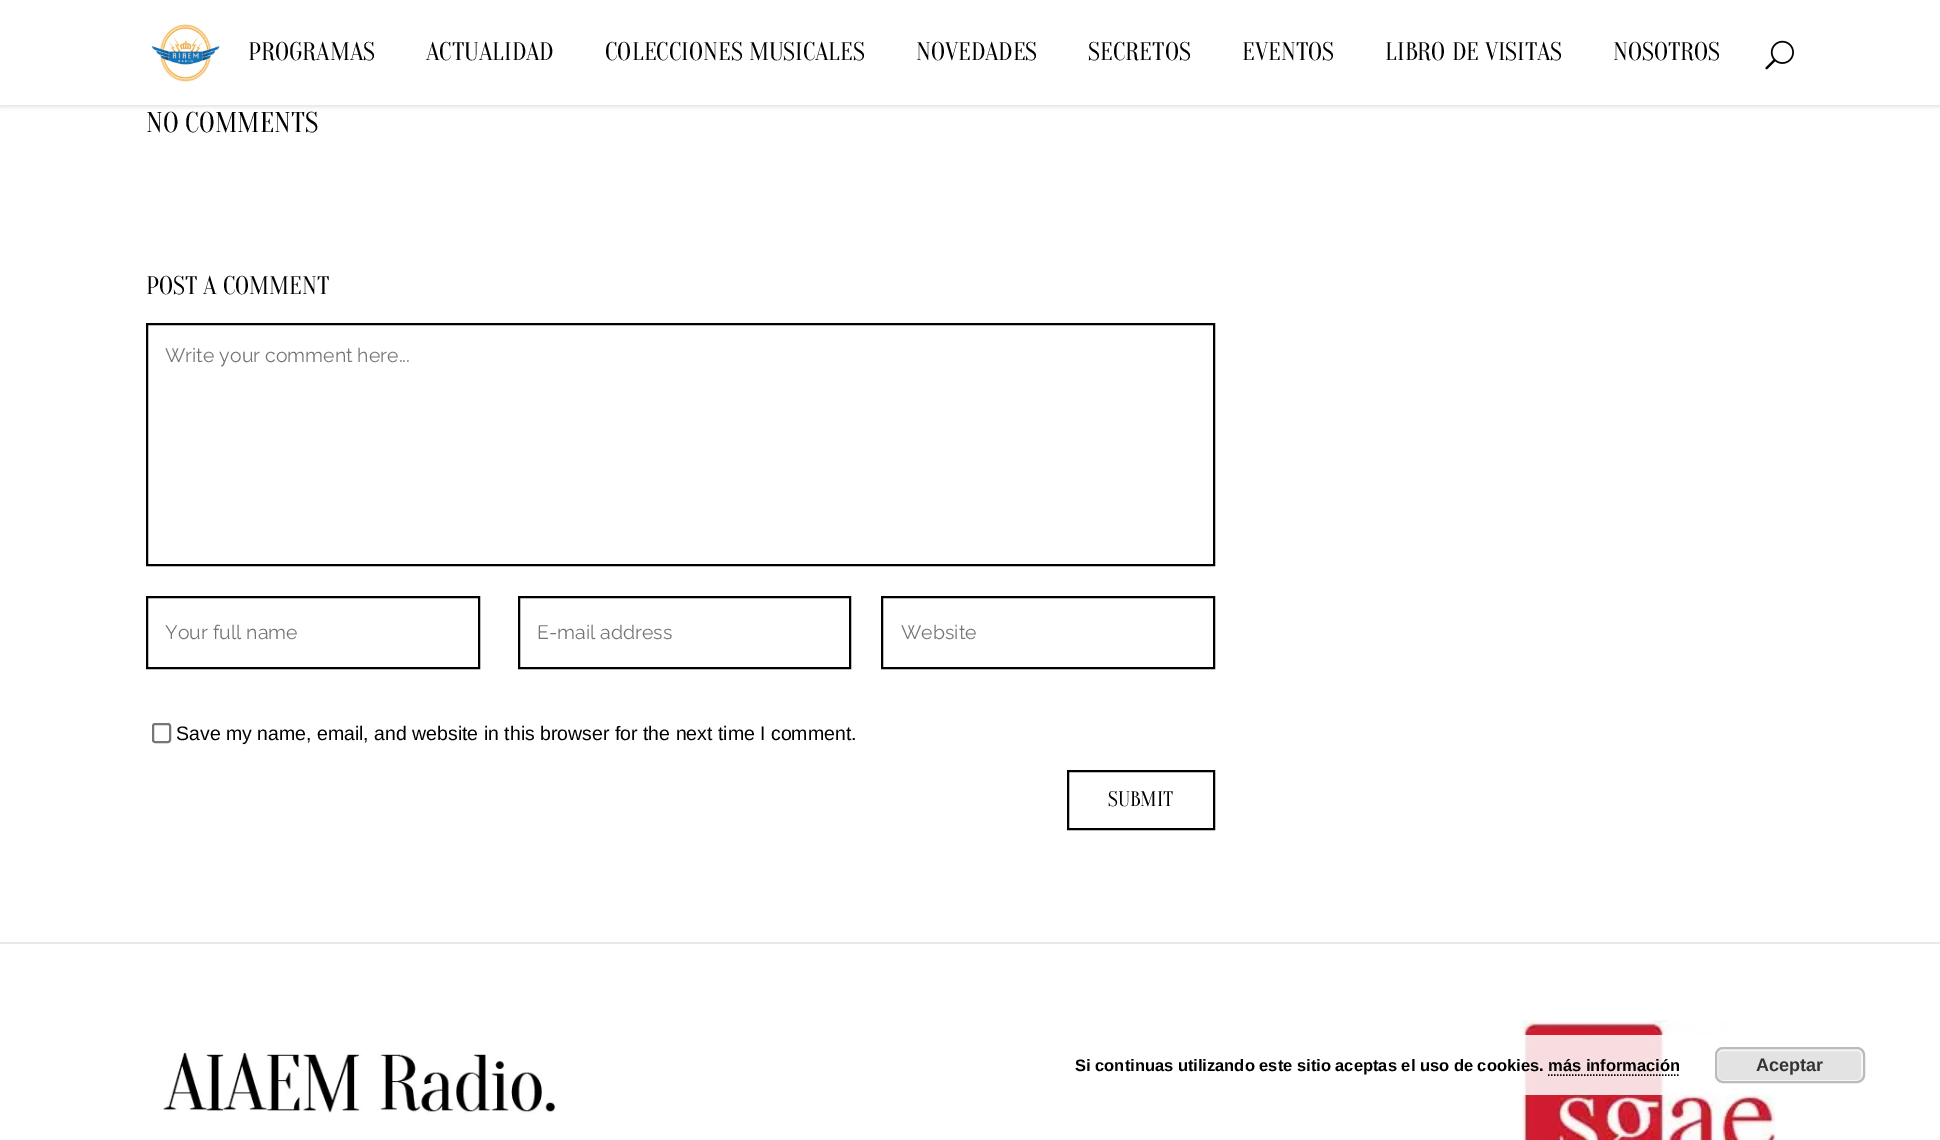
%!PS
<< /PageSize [1940 1140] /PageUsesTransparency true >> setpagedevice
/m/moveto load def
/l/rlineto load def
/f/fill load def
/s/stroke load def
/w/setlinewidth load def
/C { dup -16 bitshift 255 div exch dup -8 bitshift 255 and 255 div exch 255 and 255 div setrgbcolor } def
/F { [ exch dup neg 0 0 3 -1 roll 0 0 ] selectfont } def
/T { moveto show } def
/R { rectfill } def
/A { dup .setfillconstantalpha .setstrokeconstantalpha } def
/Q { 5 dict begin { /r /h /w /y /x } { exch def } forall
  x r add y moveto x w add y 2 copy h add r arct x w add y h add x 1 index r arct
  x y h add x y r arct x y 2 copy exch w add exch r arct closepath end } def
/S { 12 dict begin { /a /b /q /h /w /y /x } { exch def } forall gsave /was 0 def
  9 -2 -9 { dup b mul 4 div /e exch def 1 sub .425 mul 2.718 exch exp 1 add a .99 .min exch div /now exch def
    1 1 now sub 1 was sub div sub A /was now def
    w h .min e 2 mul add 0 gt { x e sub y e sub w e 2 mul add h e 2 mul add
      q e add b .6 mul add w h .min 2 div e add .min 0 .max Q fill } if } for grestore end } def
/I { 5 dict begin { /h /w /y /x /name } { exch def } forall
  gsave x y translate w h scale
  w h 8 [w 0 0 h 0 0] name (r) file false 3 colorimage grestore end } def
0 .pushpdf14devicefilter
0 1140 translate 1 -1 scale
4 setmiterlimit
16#FFFFFF C
0 0 1940 1140 R
16#000000 C
0 2 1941 105 0 2 .11 S
16#FFFFFF C
0 0 1940 105 R
(1.rgb) 151 24 69 58 I
/Oranienbaum-Regular 25.5 F
16#000000 C
(PROGRAMAS) 248 60 T
(ACTUALIDAD) 426 60 T
(COLECCIONES MUSICALES) 605 60 T
(NOVEDADES) 916 60 T
(SECRETOS) 1088 60 T
(EVENTOS) 1242 60 T
(LIBRO DE VISITAS) 1385 60 T
(NOSOTROS) 1613 60 T
(2.rgb) 1765 40 29 30 I
/Oranienbaum-Regular 28.5 F
(NO COMMENTS) 146 132 T
/Oranienbaum-Regular 25.5 F
(POST A COMMENT) 146 294 T
2 w
147 324 1067 241 rectstroke
/Raleway-Regular 19.5 F
16#757575 C
(Write your comment here...) 165 362 T
16#000000 C
147 597 332 71 rectstroke
16#757575 C
(Your full name) 165 639 T
16#000000 C
519 597 331 71 rectstroke
16#757575 C
(E-mail address) 537 639 T
16#000000 C
882 597 332 71 rectstroke
16#757575 C
(Website) 901 639 T
16#767676 C
153 724 17 18 2 Q s
/LiberationSans-Regular 19.5 F
16#000000 C
(Save my name, email, and website in this browser for the next time I comment.) 176 740 T
1068 771 146 58 rectstroke
/Oranienbaum-Regular 21 F
(SUBMIT) 1108 806 T
16#E8E8E8 C
0 942 1940 2 R
(3.rgb) 163 1050 394 64 I
(4.rgb) 1520 1020 256 120 I
0.85 A
16#FFFFFF C
1043 1035 853 60 8 Q f
/LiberationSans-Bold 16.5 F
1 A
16#000000 C
(Si continuas utilizando este sitio aceptas el uso de cookies. más información) 1075 1071 T
16#E3E3E3 C
1715 1047 150 36 8 Q f
16#F6F6F6 C
1717 1050 145 31 5 Q s
16#BBBBBB C
1716 1048 148 34 7 Q s
/LiberationSans-Bold 18 F
16#333333 C
(Aceptar) 1756 1071 T
16#000000 C
1.5 w
[1.5 1.5] 0 setdash
1548 1075 m 132 0 l s
.poppdf14devicefilter showpage
